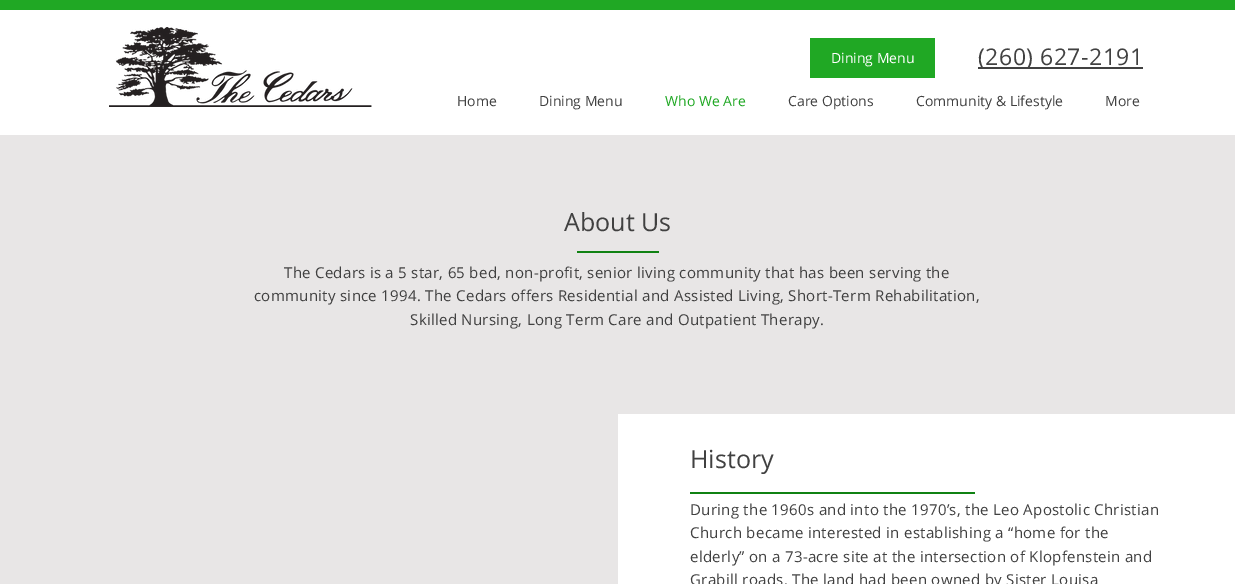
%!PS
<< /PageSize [1235 584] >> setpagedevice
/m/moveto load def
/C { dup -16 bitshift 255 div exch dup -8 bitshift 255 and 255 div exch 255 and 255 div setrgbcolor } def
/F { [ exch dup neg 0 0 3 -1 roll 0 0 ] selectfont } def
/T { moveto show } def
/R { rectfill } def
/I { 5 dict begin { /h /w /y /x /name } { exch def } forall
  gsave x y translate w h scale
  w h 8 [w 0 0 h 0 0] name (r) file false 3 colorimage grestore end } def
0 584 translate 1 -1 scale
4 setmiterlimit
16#FFFFFF C
0 0 1235 584 R
16#20A824 C
0 0 1235 10 R
(1.rgb) 109 27 263 80 I
810 38 125 40 R
/OpenSans-Regular 14 F
16#FFFFFF C
(Dining Menu) 831 63 T
16#414141 C
978 67 165 2 R
/OpenSans-Regular 23 F
978 65 m .5 0 (\(260\) 627-2191) ashow
/OpenSans-Regular 14 F
(Home) 457 106 T
(Dining Menu) 539 106 T
16#20A824 C
(Who We Are) 665 106 T
16#414141 C
(Care Options) 788 106 T
(Community & Lifestyle) 916 106 T
(More) 1105 106 T
16#E8E6E6 C
0 135 1235 279 R
/OpenSans-Regular 25 F
16#414141 C
(About Us) 564 231 T
/OpenSans-Regular 15 F
284 278 m .3 0 (The Cedars is a 5 star, 65 bed, non-profit, senior living community that has been serving the) ashow
254 301 m .3 0 (community since 1994. The Cedars offers Residential and Assisted Living, Short-Term Rehabilitation,) ashow
410 325 m .3 0 (Skilled Nursing, Long Term Care and Outpatient Therapy.) ashow
16#108213 C
577 251 82 2 R
16#E8E6E6 C
0 414 618 170 R
/OpenSans-Regular 25 F
16#414141 C
(History) 690 468 T
/OpenSans-Regular 15 F
690 515 m .3 0 (During the 1960s and into the 1970’s, the Leo Apostolic Christian) ashow
690 538 m .3 0 (Church became interested in establishing a “home for the) ashow
690 562 m .3 0 (elderly” on a 73-acre site at the intersection of Klopfenstein and) ashow
690 585 m .3 0 (Grabill roads. The land had been owned by Sister Louisa) ashow
16#108213 C
690 492 285 2 R
showpage
